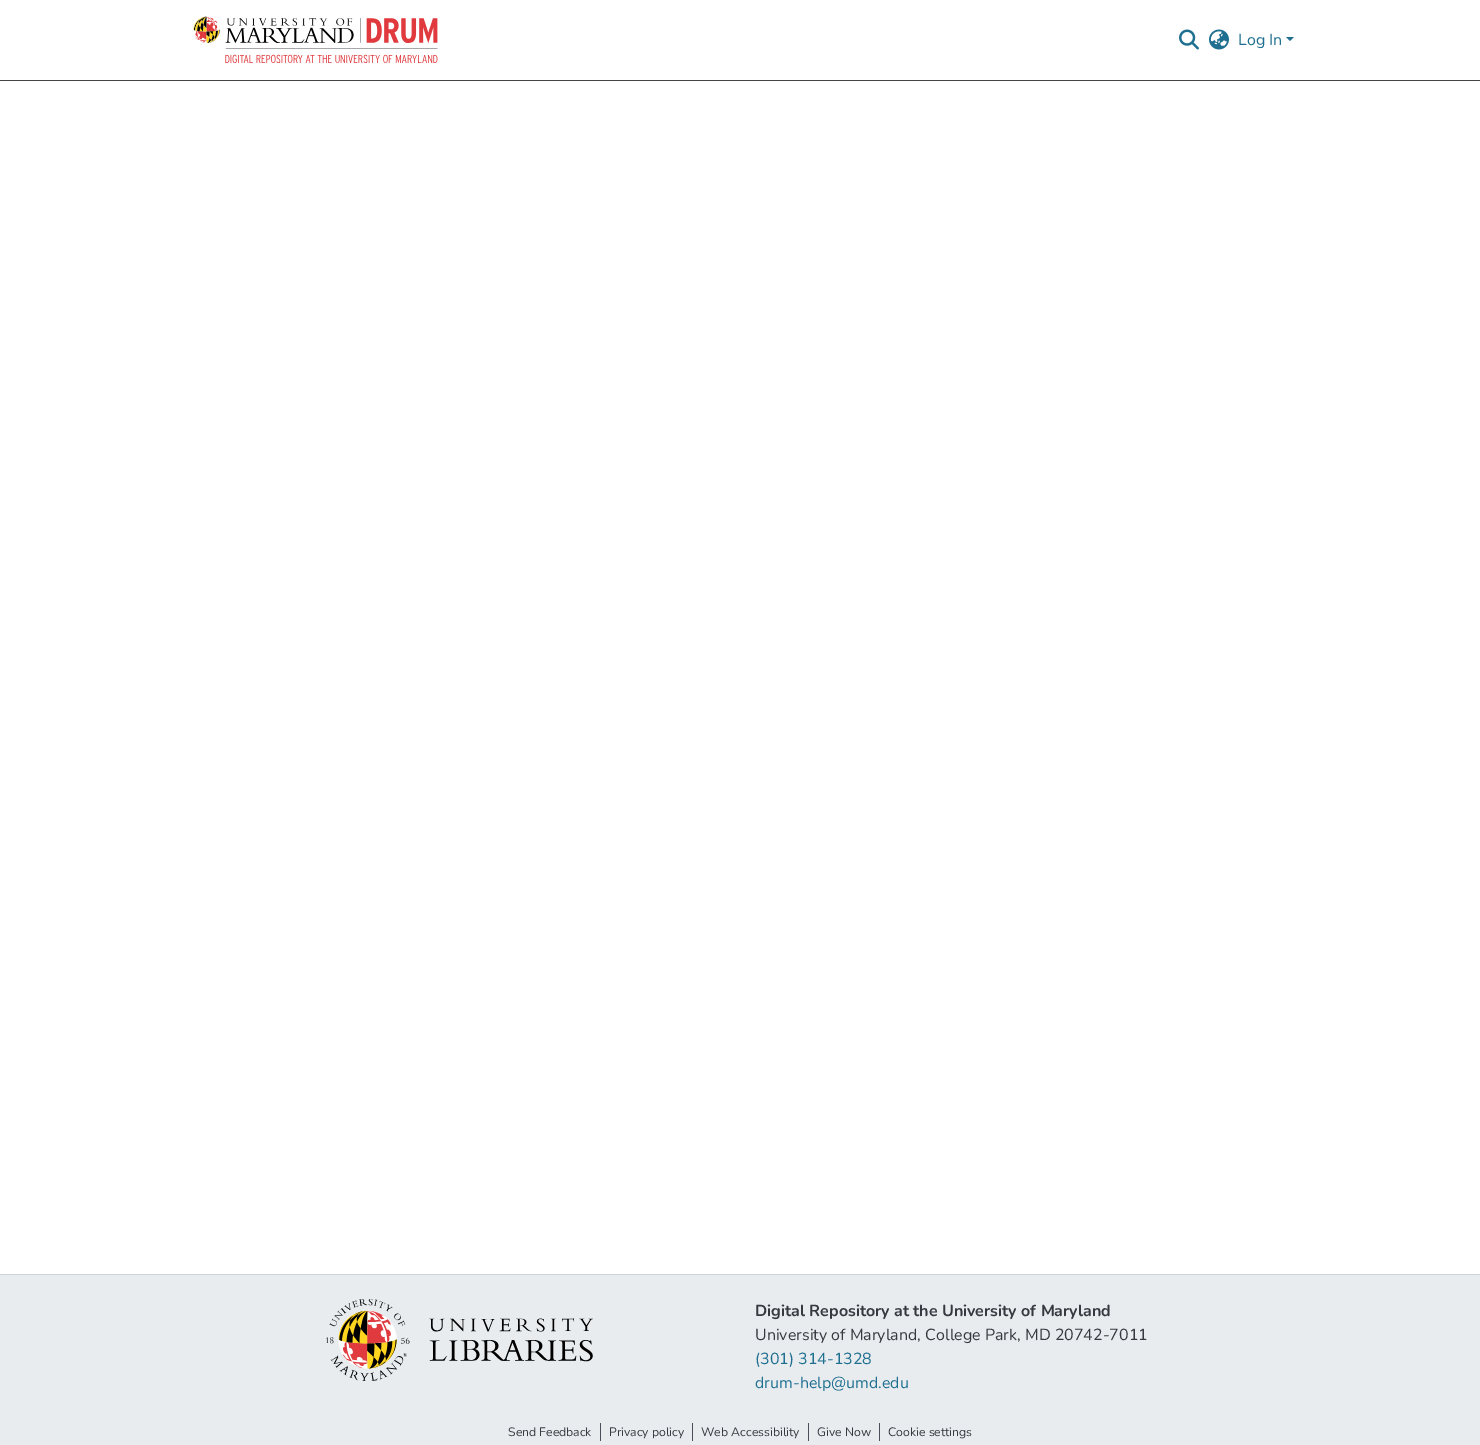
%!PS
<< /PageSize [1480 1445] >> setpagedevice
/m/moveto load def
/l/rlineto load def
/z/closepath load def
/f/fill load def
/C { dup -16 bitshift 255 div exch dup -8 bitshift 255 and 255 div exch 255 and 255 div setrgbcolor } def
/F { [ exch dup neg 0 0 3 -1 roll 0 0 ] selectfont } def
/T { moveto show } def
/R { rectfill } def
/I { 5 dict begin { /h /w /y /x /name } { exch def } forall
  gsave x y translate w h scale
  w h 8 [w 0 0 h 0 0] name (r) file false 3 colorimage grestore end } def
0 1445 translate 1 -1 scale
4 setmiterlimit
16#FFFFFF C
0 0 1480 1445 R
16#454545 C
0 80 1480 1 R
(1.rgb) 193 16 245 47 I
(2.rgb) 1179 29 20 21 I
(3.rgb) 1209 29 20 21 I
/Nunito-Regular 16 F
16#1E6F90 C
(Log In) 1238 45 T
1286 37 m 8 0 l -4 4 l z f
16#E9ECEF C
0 1275 1480 170 R
16#CED4DA C
0 1274 1480 1 R
(4.rgb) 325 1299 268 82 I
/Nunito-Bold 16 F
16#343A40 C
(Digital Repository at the University of Maryland) 755 1316 T
/Nunito-Regular 16 F
(University of Maryland, College Park, MD 20742-7011) 755 1340 T
16#1E6F90 C
(\(301\) 314-1328) 755 1364 T
(drum-help@umd.edu) 755 1388 T
/Nunito-Regular 12.25 F
16#343A40 C
(Send Feedback) 508 1436 T
16#495057 C
600 1423 1 18 R
16#343A40 C
(Privacy policy) 609 1436 T
16#495057 C
692 1423 1 18 R
16#343A40 C
(Web Accessibility) 701 1436 T
16#495057 C
808 1423 1 18 R
16#343A40 C
(Give Now) 817 1436 T
16#495057 C
879 1423 1 18 R
16#343A40 C
(Cookie settings) 888 1436 T
showpage
